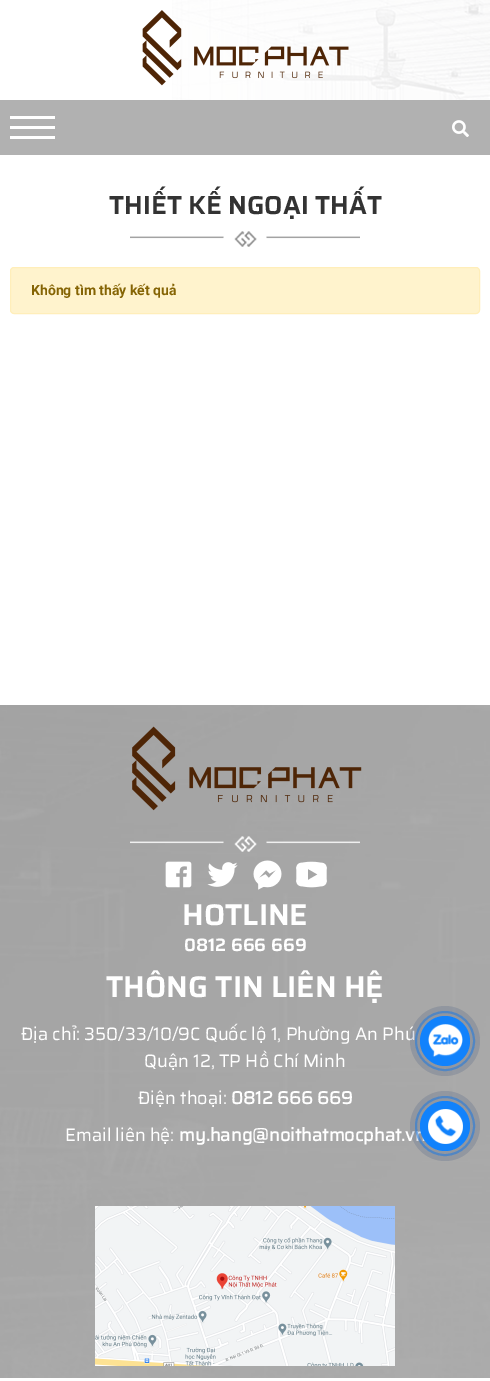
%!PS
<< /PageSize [490 1381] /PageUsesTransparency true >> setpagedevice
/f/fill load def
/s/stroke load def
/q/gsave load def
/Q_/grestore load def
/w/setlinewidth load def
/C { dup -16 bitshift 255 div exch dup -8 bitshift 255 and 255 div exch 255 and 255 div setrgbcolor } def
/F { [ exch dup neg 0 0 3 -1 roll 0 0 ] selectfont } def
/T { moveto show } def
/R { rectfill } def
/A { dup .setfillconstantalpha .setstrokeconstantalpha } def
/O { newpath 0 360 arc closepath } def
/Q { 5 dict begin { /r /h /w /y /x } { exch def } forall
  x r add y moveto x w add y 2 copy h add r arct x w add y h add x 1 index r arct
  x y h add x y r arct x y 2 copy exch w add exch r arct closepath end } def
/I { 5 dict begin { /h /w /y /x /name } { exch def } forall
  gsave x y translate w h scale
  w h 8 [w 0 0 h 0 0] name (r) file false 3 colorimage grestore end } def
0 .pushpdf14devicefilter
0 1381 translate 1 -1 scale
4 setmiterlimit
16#FFFFFF C
0 0 490 1381 R
(1.rgb) 172 0 318 100 I
(2.rgb) 142 10 207 76 I
16#B1B1B1 C
0 100 490 55 R
16#FFFFFF C
10 116 45 3 R
10 126 45 3 R
10 136 45 3 R
(3.rgb) 452 120 17 17 I
(4.rgb) 130 231 230 16 I
/Saira-SemiBold 26 F
16#333333 C
(THIẾT KẾ NGOẠI THẤT) 109 214 T
16#FFF3CD C
10.5 267.5 469 46 3.5 Q q f Q_
16#FFEEBA C
s
/Roboto-Bold 14 F
16#856404 C
(Không tìm thấy kết quả) 31 295 T
(5.rgb) 0 705 490 673 I
(6.rgb) 130 836 230 16 I
(7.rgb) 132 726 230 85 I
(8.rgb) 165 861 27 27 I
(9.rgb) 207 862 31 25 I
(10.rgb) 253 860 29 30 I
(11.rgb) 296 861 31 27 I
/Saira-SemiBold 30 F
16#FFFFFF C
(HOTLINE) 182 925 T
/Saira-SemiBold 18 F
(0812 666 669) 184 951 T
/Saira-SemiBold 30 F
(THÔNG TIN LIÊN HỆ) 106 997 T
/Saira-Regular 18 F
(Địa chỉ: 350/33/10/9C Quốc lộ 1, Phường An Phú) 21 1040 T
(Quận 12, TP Hồ Chí Minh) 144 1067 T
(Điện thoại:) 138 1104 T
/Saira-Bold 18 F
(0812 666 669) 231 1104 T
/Saira-Regular 18 F
(Email liên hệ:) 65 1141 T
/Saira-Bold 18 F
(my.hang@noithatmocphat.vn) 179 1141 T
(12.rgb) 95 1206 300 160 I
16#5D95D2 C
2 w
445 1041 29 O s
0.14 A
16#072967 C
445 1041 35 O f
1 A
16#1182FC C
445 1041 25 O f
(13.rgb) 428 1024 35 33 I
0.5 A
445 1126 29 O s
0.14 A
16#072967 C
445 1126 35 O f
1 A
16#1182FC C
445 1126 25 O f
(14.rgb) 428 1109 35 35 I
.poppdf14devicefilter showpage
